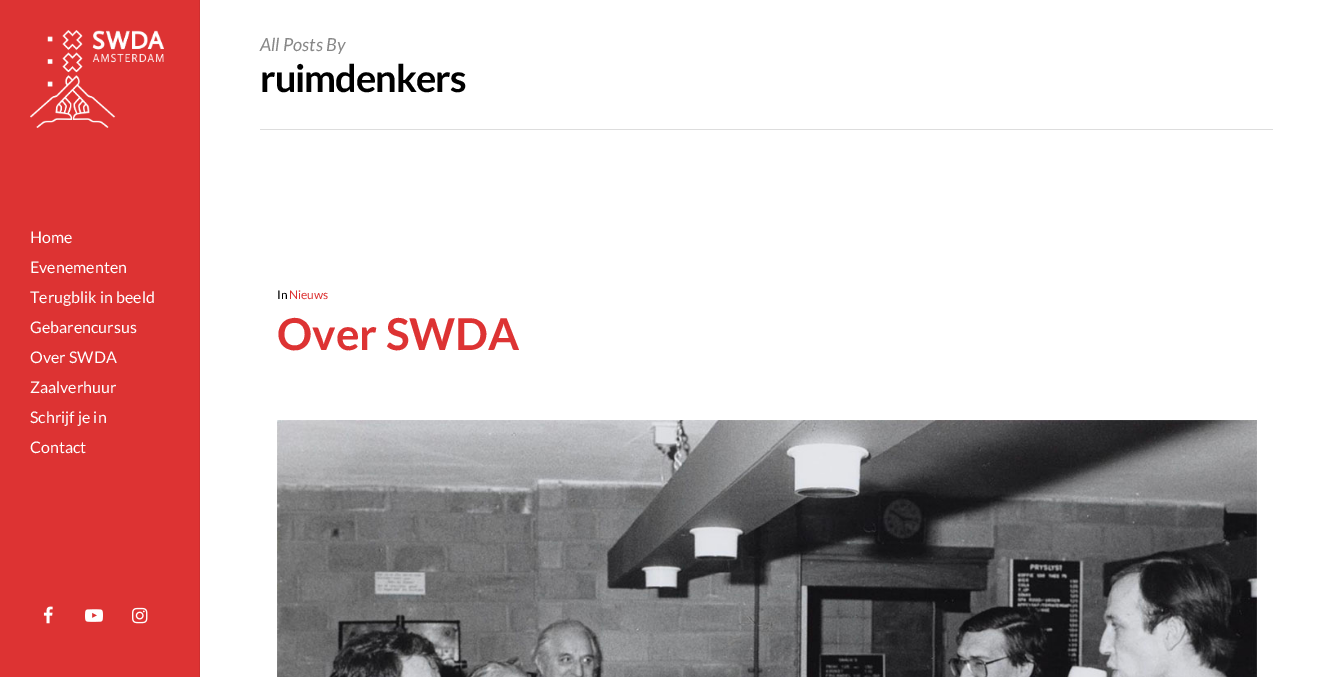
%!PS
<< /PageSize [1333 677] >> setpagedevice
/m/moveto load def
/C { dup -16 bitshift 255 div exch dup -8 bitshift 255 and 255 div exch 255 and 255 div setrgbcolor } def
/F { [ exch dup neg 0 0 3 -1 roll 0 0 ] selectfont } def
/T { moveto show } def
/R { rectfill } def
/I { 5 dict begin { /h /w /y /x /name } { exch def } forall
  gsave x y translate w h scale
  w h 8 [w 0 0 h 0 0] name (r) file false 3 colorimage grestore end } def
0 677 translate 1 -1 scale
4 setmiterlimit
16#FFFFFF C
0 0 1333 677 R
16#DD3333 C
0 0 199 677 R
16#CE2F2F C
199 0 1 677 R
(1.rgb) 30 30 134 98 I
/Lato-Regular 16 F
16#FFFFFF C
(Home) 30 243 T
(Evenementen) 30 273 T
(Terugblik in beeld) 30 303 T
(Gebarencursus) 30 333 T
(Over SWDA) 30 363 T
(Zaalverhuur) 30 393 T
(Schrijf je in) 30 423 T
(Contact) 30 453 T
(2.rgb) 43 606 10 18 I
(3.rgb) 85 609 18 13 I
(4.rgb) 132 607 16 17 I
16#DDDDDD C
260 129 1013 1 R
/Lato-Italic 18 F
16#888888 C
(All Posts By) 260 51 T
/Lato-Bold 38 F
16#000000 C
260 92 m -1 0 (ruimdenkers) ashow
/Lato-Regular 12 F
(In) 277 299 T
16#DD3333 C
(Nieuws) 289 299 T
/Lato-Bold 44 F
(Over SWDA) 277 350 T
(5.rgb) 277 420 980 257 I
showpage
